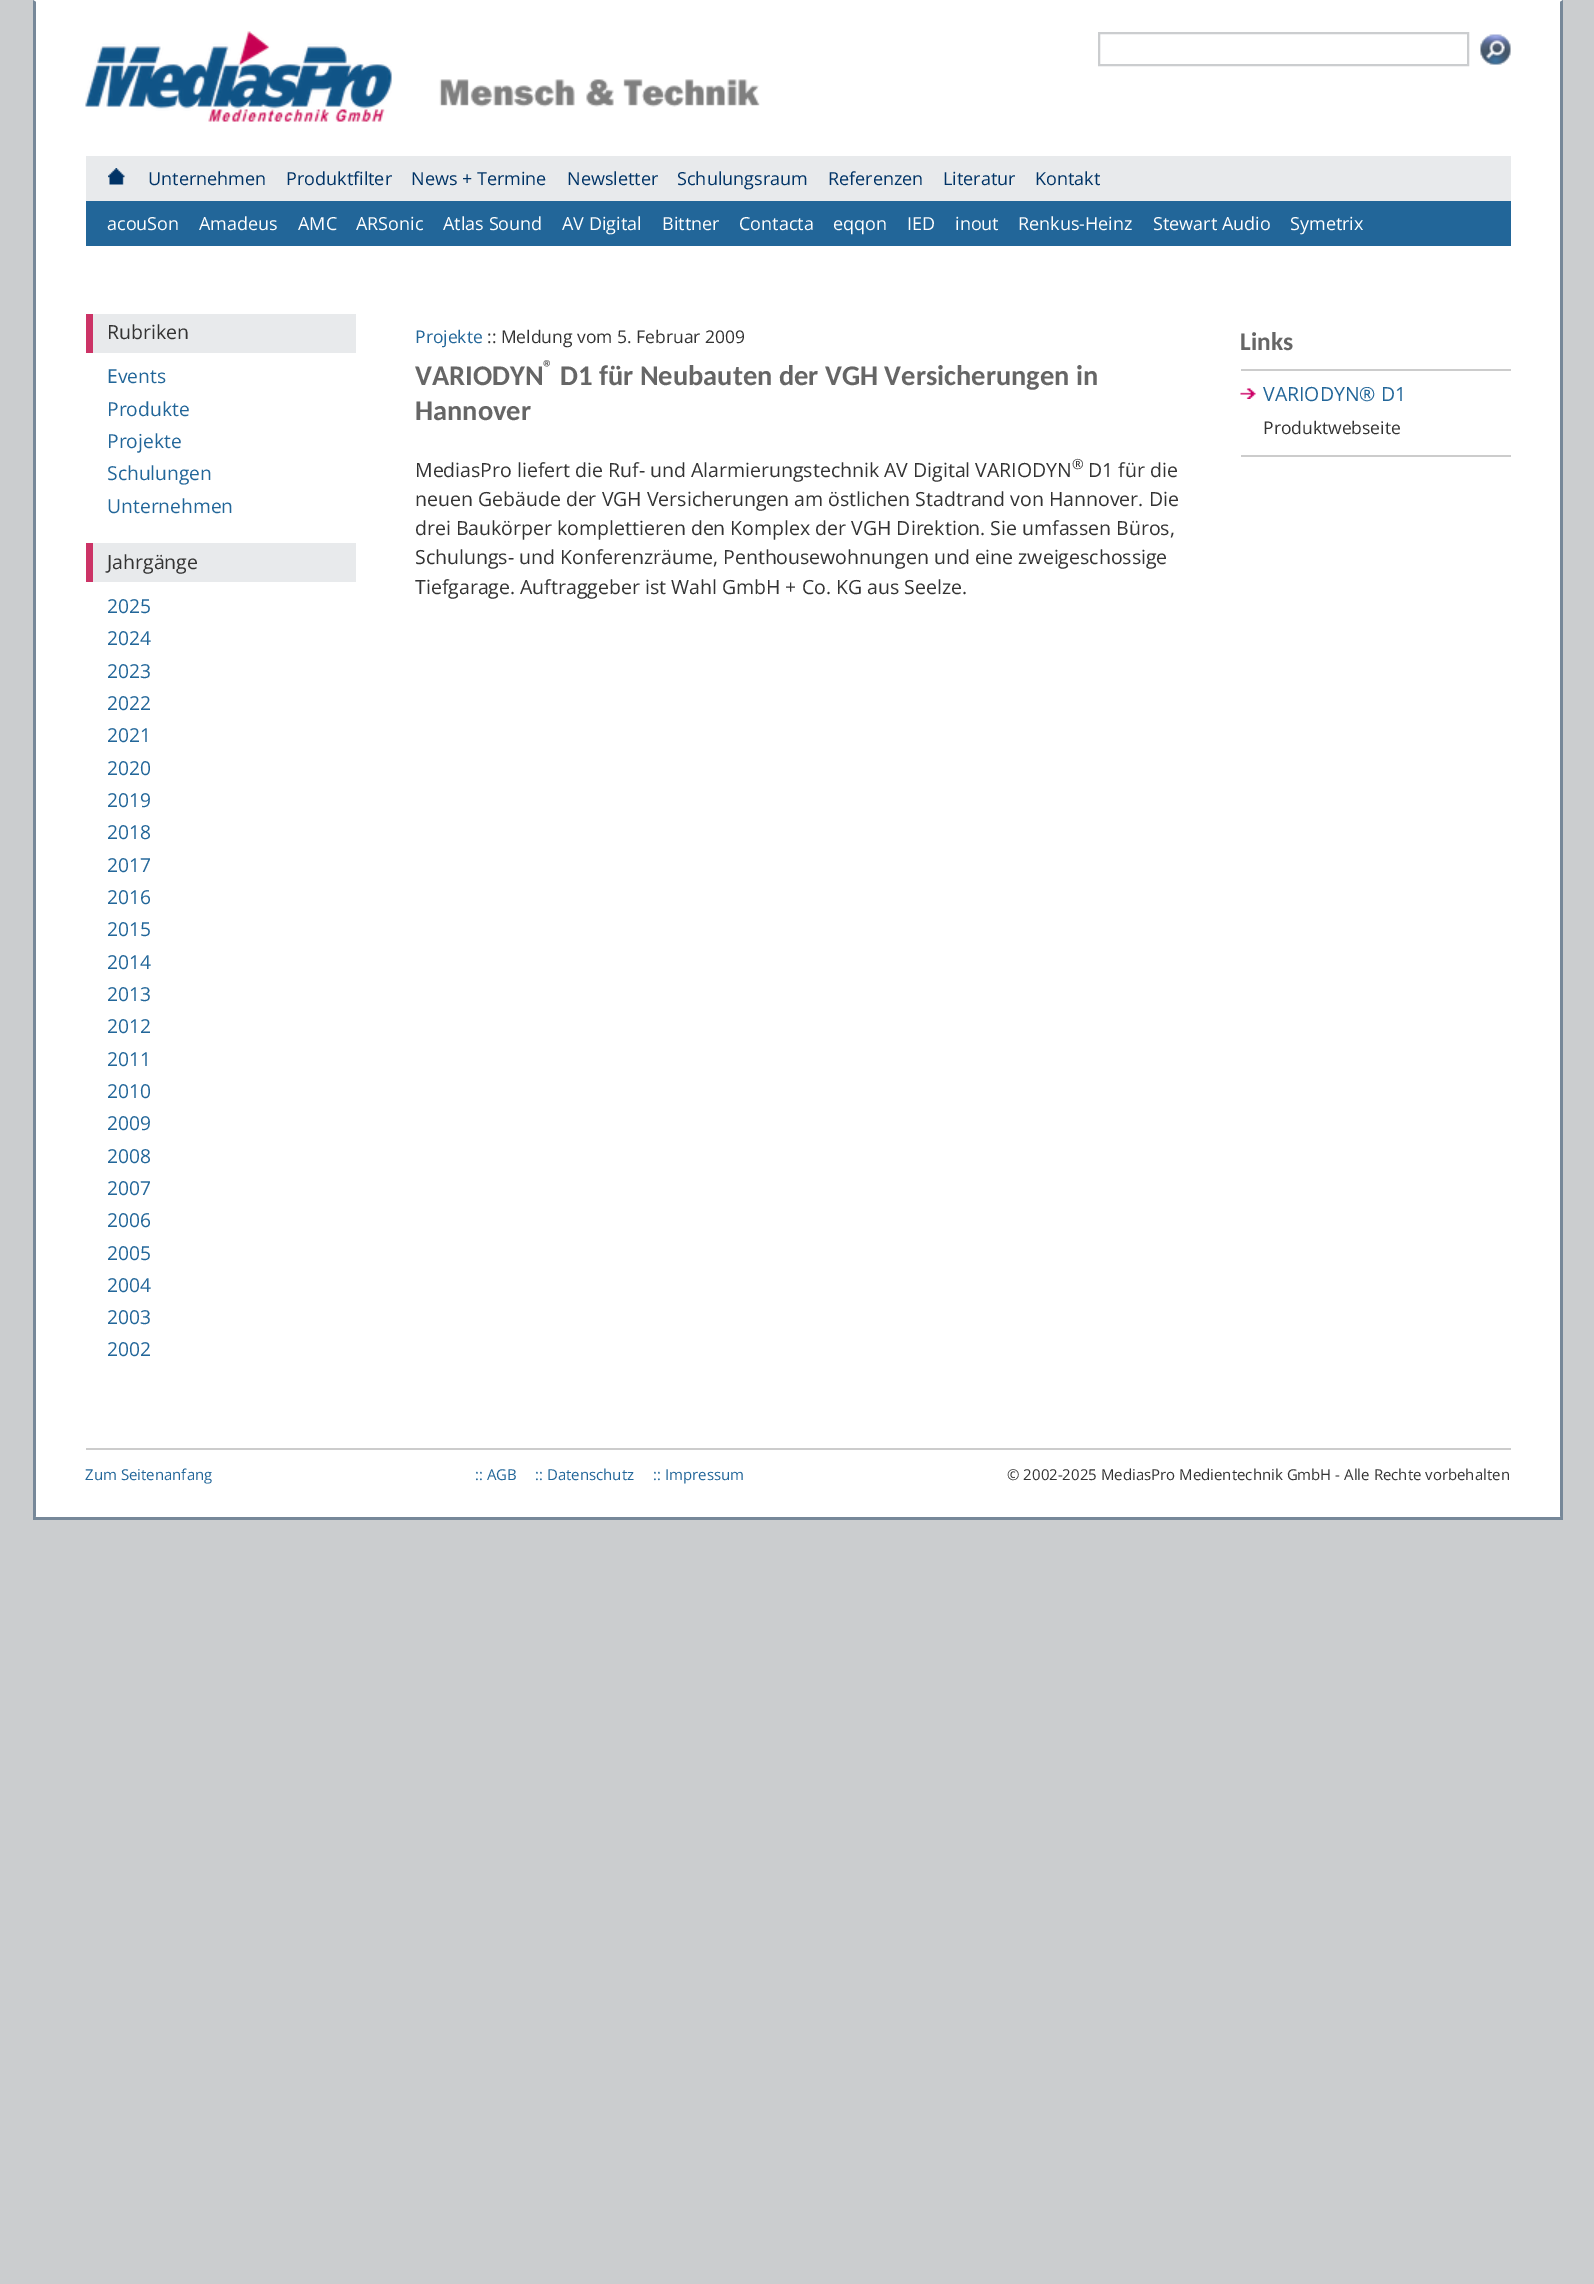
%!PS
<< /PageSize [1594 2284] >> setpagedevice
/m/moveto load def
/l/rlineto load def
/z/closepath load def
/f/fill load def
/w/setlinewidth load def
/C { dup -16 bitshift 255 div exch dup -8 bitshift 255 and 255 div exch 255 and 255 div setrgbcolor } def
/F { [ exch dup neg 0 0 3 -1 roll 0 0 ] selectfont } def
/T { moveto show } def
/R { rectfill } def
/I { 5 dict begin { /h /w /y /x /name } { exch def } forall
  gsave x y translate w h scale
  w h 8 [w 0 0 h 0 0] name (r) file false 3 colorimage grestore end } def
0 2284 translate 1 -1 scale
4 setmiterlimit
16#CBCDCF C
0 0 1594 2284 R
16#FFFFFF C
36 2 1524 1515 R
33 0 m 1530 0 l -3 2 l -1524 0 l z f
16#778899 C
1563 0 m 0 1520 l -3 -4 l 0 -1514 l z f
33 1517 1530 3 R
33 1520 m 0 -1520 l 3 2 l 0 1514 l z f
(1.rgb) 85 31 307 91 I
(2.rgb) 439 79 321 28 I
16#CBCDCF C
2 w
1099 33 369 32 rectstroke
(3.rgb) 1480 34 31 31 I
16#E8EAEC C
86 156 1425 45 R
(4.rgb) 108 168 17 17 I
/OpenSans-Regular 18 F
16#003366 C
(Unternehmen) 148 185 T
(Produktfilter) 286 185 T
(News + Termine) 411 185 T
(Newsletter) 567 185 T
(Schulungsraum) 677 185 T
(Referenzen) 828 185 T
(Literatur) 943 185 T
(Kontakt) 1035 185 T
16#226699 C
86 201 1425 45 R
16#FFFFFF C
(acouSon) 107 230 T
(Amadeus) 199 230 T
(AMC) 298 230 T
(ARSonic) 356 230 T
(Atlas Sound) 443 230 T
(AV Digital) 562 230 T
(Bittner) 662 230 T
(Contacta) 739 230 T
(eqqon) 833 230 T
(IED) 907 230 T
(inout) 955 230 T
(Renkus-Heinz) 1018 230 T
(Stewart Audio) 1153 230 T
(Symetrix) 1290 230 T
16#E8EAEC C
93 314 263 39 R
16#CC3366 C
86 314 7 39 R
/OpenSans-Regular 19.5 F
16#333333 C
(Rubriken) 107 339 T
/OpenSans-Regular 19.25 F
16#226699 C
(Events) 107 383 T
(Produkte) 107 416 T
(Projekte) 107 448 T
(Schulungen) 107 480 T
(Unternehmen) 107 513 T
16#E8EAEC C
93 543 263 39 R
16#CC3366 C
86 543 7 39 R
/OpenSans-Regular 19.5 F
16#333333 C
(Jahrgänge) 107 569 T
/OpenSans-Regular 19.25 F
16#226699 C
(2025) 107 613 T
(2024) 107 645 T
(2023) 107 678 T
(2022) 107 710 T
(2021) 107 742 T
(2020) 107 775 T
(2019) 107 807 T
(2018) 107 839 T
(2017) 107 872 T
(2016) 107 904 T
(2015) 107 936 T
(2014) 107 969 T
(2013) 107 1001 T
(2012) 107 1033 T
(2011) 107 1066 T
(2010) 107 1098 T
(2009) 107 1130 T
(2008) 107 1163 T
(2007) 107 1195 T
(2006) 107 1227 T
(2005) 107 1260 T
(2004) 107 1292 T
(2003) 107 1324 T
(2002) 107 1356 T
/OpenSans-Regular 17.5 F
(Projekte) 415 343 T
16#333333 C
(:: Meldung vom 5. Februar 2009) 487 343 T
/Carlito-Bold 20 F
16#666666 C
(®) 543 374 T
/Carlito-Bold 28.5 F
(VARIODYN) 415 385 T
(D1 für Neubauten der VGH Versicherungen in) 560 385 T
(Hannover) 415 420 T
/OpenSans-Regular 19.5 F
16#333333 C
(MediasPro liefert die Ruf- und Alarmierungstechnik AV Digital VARIODYN) 415 477 T
/OpenSans-Regular 14 F
(®) 1072 469 T
/OpenSans-Regular 19.5 F
(D1 für die) 1088 477 T
(neuen Gebäude der VGH Versicherungen am östlichen Stadtrand von Hannover. Die) 415 506 T
(drei Baukörper komplettieren den Komplex der VGH Direktion. Sie umfassen Büros,) 415 535 T
(Schulungs- und Konferenzräume, Penthousewohnungen und eine zweigeschossige) 415 564 T
(Tiefgarage. Auftraggeber ist Wahl GmbH + Co. KG aus Seelze.) 415 594 T
/Carlito-Bold 25.5 F
16#666666 C
(Links) 1240 350 T
(5.rgb) 1240 388 16 11 I
16#CCCCCC C
1241 369 270 2 R
1241 455 270 2 R
/OpenSans-Regular 19.5 F
16#226699 C
(VARIODYN® D1) 1263 401 T
/OpenSans-Regular 17.5 F
16#333333 C
(Produktwebseite) 1263 434 T
16#CCCCCC C
86 1448 1425 2 R
/OpenSans-Regular 15 F
16#226699 C
(Zum Seitenanfang) 85 1480 T
(:: AGB) 475 1480 T
(:: Datenschutz) 535 1480 T
(:: Impressum) 653 1480 T
16#333333 C
(© 2002-2025 MediasPro Medientechnik GmbH - Alle Rechte vorbehalten) 1007 1480 T
showpage
